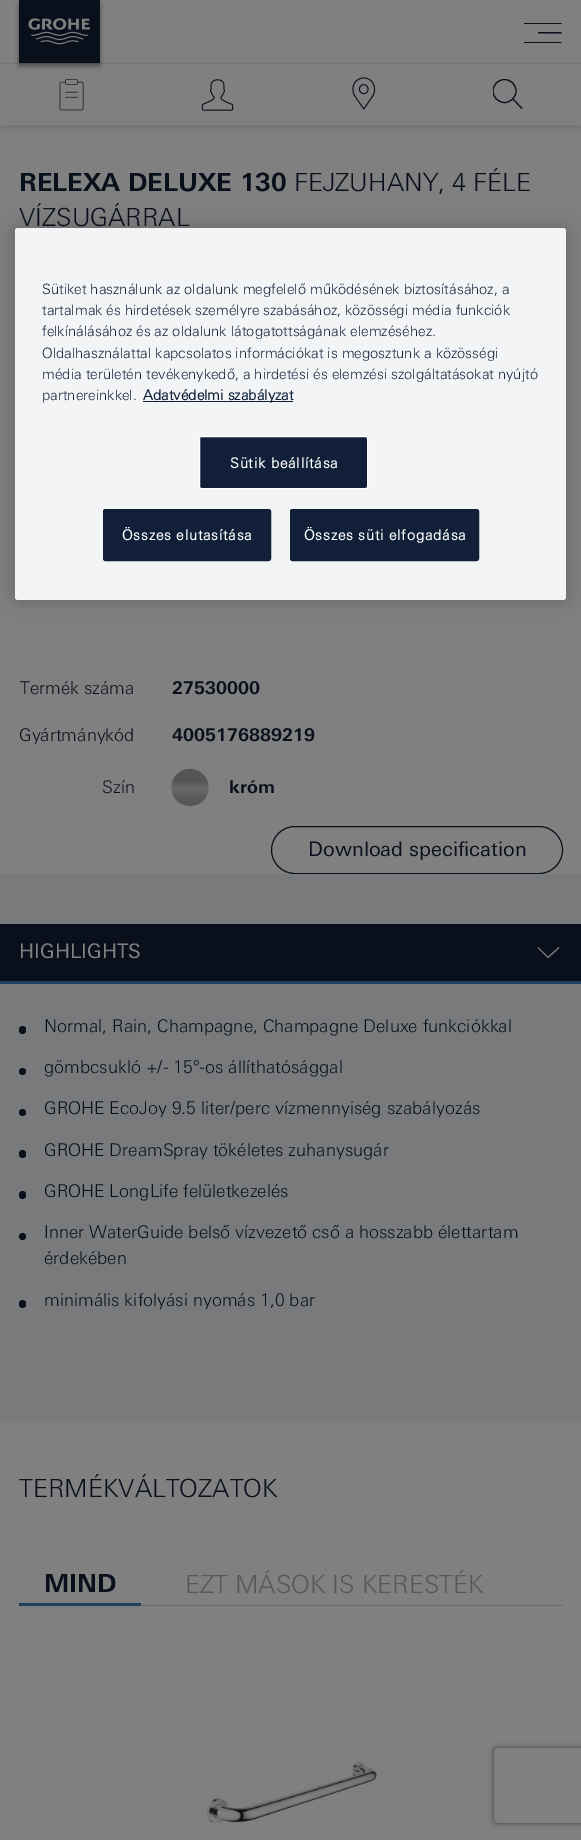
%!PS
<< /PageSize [581 1840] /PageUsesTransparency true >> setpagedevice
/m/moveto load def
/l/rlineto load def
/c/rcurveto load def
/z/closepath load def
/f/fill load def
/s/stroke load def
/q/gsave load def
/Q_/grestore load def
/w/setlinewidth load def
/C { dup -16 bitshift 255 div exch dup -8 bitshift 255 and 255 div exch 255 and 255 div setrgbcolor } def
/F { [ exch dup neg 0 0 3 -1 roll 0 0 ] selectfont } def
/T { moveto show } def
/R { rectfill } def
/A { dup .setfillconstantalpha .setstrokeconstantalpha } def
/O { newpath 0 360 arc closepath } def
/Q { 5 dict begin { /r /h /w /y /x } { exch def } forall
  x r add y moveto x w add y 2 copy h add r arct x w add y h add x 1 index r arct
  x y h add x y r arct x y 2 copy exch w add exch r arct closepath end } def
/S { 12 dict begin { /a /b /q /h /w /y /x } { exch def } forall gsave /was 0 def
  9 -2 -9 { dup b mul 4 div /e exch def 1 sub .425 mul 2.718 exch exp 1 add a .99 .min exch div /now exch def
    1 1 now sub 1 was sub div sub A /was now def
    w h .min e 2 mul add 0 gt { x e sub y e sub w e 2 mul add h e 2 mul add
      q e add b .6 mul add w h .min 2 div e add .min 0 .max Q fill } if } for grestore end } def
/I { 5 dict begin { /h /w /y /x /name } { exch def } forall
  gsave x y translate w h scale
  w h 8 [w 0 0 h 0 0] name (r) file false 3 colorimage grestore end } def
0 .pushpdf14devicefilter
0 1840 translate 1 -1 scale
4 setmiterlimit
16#808080 C
0 0 581 1840 R
16#000000 C
0 68 581 62 0 3 .1 S
16#808080 C
0 66 581 59 R
16#737373 C
0 63 581 1 R
16#000000 C
19 4 81 62 0 2.5 .4 S
16#09101C C
19 0 81 63 R
(1.rgb) 28 18 62 27 I
q
524 23 39 21 rectclip
524 22.5 m 37.5 0 l 0 1.5 l -37.5 0 l z 538 32 m 23.5 0 l 0 1.5 l -23.5 0 l z 524 42 m 37.5 0 l 0 1 l -37.5 0 l z f
Q_
(2.rgb) 59 79 25 32 I
(3.rgb) 201 79 33 32 I
(4.rgb) 352 77 24 33 I
1.1 w
522 108.5 m -9.5 -10 l z s
q
493 79 30 30 rectclip
504.5 91 11.5 O s
Q_
/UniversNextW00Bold-Bold 25 F
(RELEXA DELUXE 130) 19 191 T
/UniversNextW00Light-Light 25 F
(FEJZUHANY, 4 FÉLE) 294 191 T
(VÍZSUGÁRRAL) 19 226 T
/UniversNextW00Light-Light 17.5 F
(Termék száma) 20 694 T
/UniversNextW00Bold-Bold 17.5 F
(27530000) 172 694 T
/UniversNextW00Light-Light 17.5 F
(Gyártmánykód) 19 741 T
/UniversNextW00Bold-Bold 17.5 F
(4005176889219) 172 741 T
/UniversNextW00Light-Light 17.5 F
(Szín) 102 793 T
(5.rgb) 171 768 38 38 I
/UniversNextW00Bold-Bold 17.5 F
(króm) 229 793 T
1 w
271.5 826.5 291 47 23.5 Q s
/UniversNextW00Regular-Regular 20 F
(Download specification) 308 856 T
16#797A7B C
0 874 581 547 R
16#09101C C
0 924 581 57 R
16#1D425F C
0 981 581 3 R
16#808080 C
(HIGHLIGHTS) 19 958 T
559 947.5 m -11 10 l -10 -10 l s
16#09101C C
19 1026 7 8 3.5 Q f
/UniversNextW00Light-Light 17.5 F
(Normal, Rain, Champagne, Champagne Deluxe funkciókkal) 44 1032 T
22.5 1071.5 3.5 O f
(gömbcsukló +/- 15°-os állíthatósággal) 44 1073 T
22.5 1112.5 3.5 O f
(GROHE EcoJoy 9.5 liter/perc vízmennyiség szabályozás) 44 1114 T
19 1150 7 8 3.5 Q f
(GROHE DreamSpray tökéletes zuhanysugár) 44 1156 T
19 1191 7 8 3.5 Q f
(GROHE LongLife felületkezelés) 44 1197 T
22.5 1236.5 3.5 O f
(Inner WaterGuide belső vízvezető cső a hosszabb élettartam) 44 1238 T
(érdekében) 44 1264 T
19 1300 7 8 3.5 Q f
(minimális kifolyási nyomás 1,0 bar) 44 1306 T
/UniversNextW00Light-Light 25 F
(TERMÉKVÁLTOZATOK) 19 1497 T
16#1D425F C
19 1603 122 3 R
/UniversNextW00Bold-Bold 25 F
16#09101C C
(MIND) 44 1592 T
/UniversNextW00Light-Light 25 F
16#55585D C
(EZT MÁSOK IS KERESTÉK) 185 1593 T
16#696C70 C
141 1605 422 1 R
(6.rgb) 206 1761 171 64 I
16#000000 C
15 228 551 372 3 11 .2 S
16#F2F4F6 C
15 228 551 372 3 Q f
/UniversNextW00Light-Light 14.25 F
16#112038 C
(Sütiket használunk az oldalunk megfelelő működésének biztosításához, a) 42 294 T
(tartalmak és hirdetések személyre szabásához, közösségi média funkciók) 42 315 T
(felkínálásához és az oldalunk látogatottságának elemzéséhez.) 42 336 T
(Oldalhasználattal kapcsolatos információkat is megosztunk a közösségi) 42 358 T
(média területén tevékenykedő, a hirdetési és elemzési szolgáltatásokat nyújtó) 42 379 T
(partnereinkkel.) 42 400 T
143 401 150 1 R
/UniversNextW00Light-Bold 14.25 F
(Adatvédelmi szabályzat) 143 400 T
199.5 436.5 168 52 2 Q q f Q_
16#FFFFFF C
s
230 468 m .75 0 (Sütik beállítása) ashow
16#112038 C
103.5 509.5 167 51 2 Q q f Q_
s
16#FFFFFF C
122 540 m .75 0 (Összes elutasítása) ashow
16#112038 C
290.5 509.5 188 51 2 Q q f Q_
s
16#FFFFFF C
304 540 m .75 0 (Összes süti elfogadása) ashow
q
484 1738 m 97 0 l 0 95 l -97 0 l z 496.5 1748 m 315 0 l 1.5 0 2.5 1 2.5 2.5 c 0 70 l 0 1.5 -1 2.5 -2.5 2.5 c -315 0 l -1.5 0 -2.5 -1 -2.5 -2.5 c 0 -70 l 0 -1.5 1 -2.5 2.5 -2.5 c z eoclip newpath
16#404040 C
494 1748 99 75 2.5 3 1 S
Q_
.poppdf14devicefilter showpage
